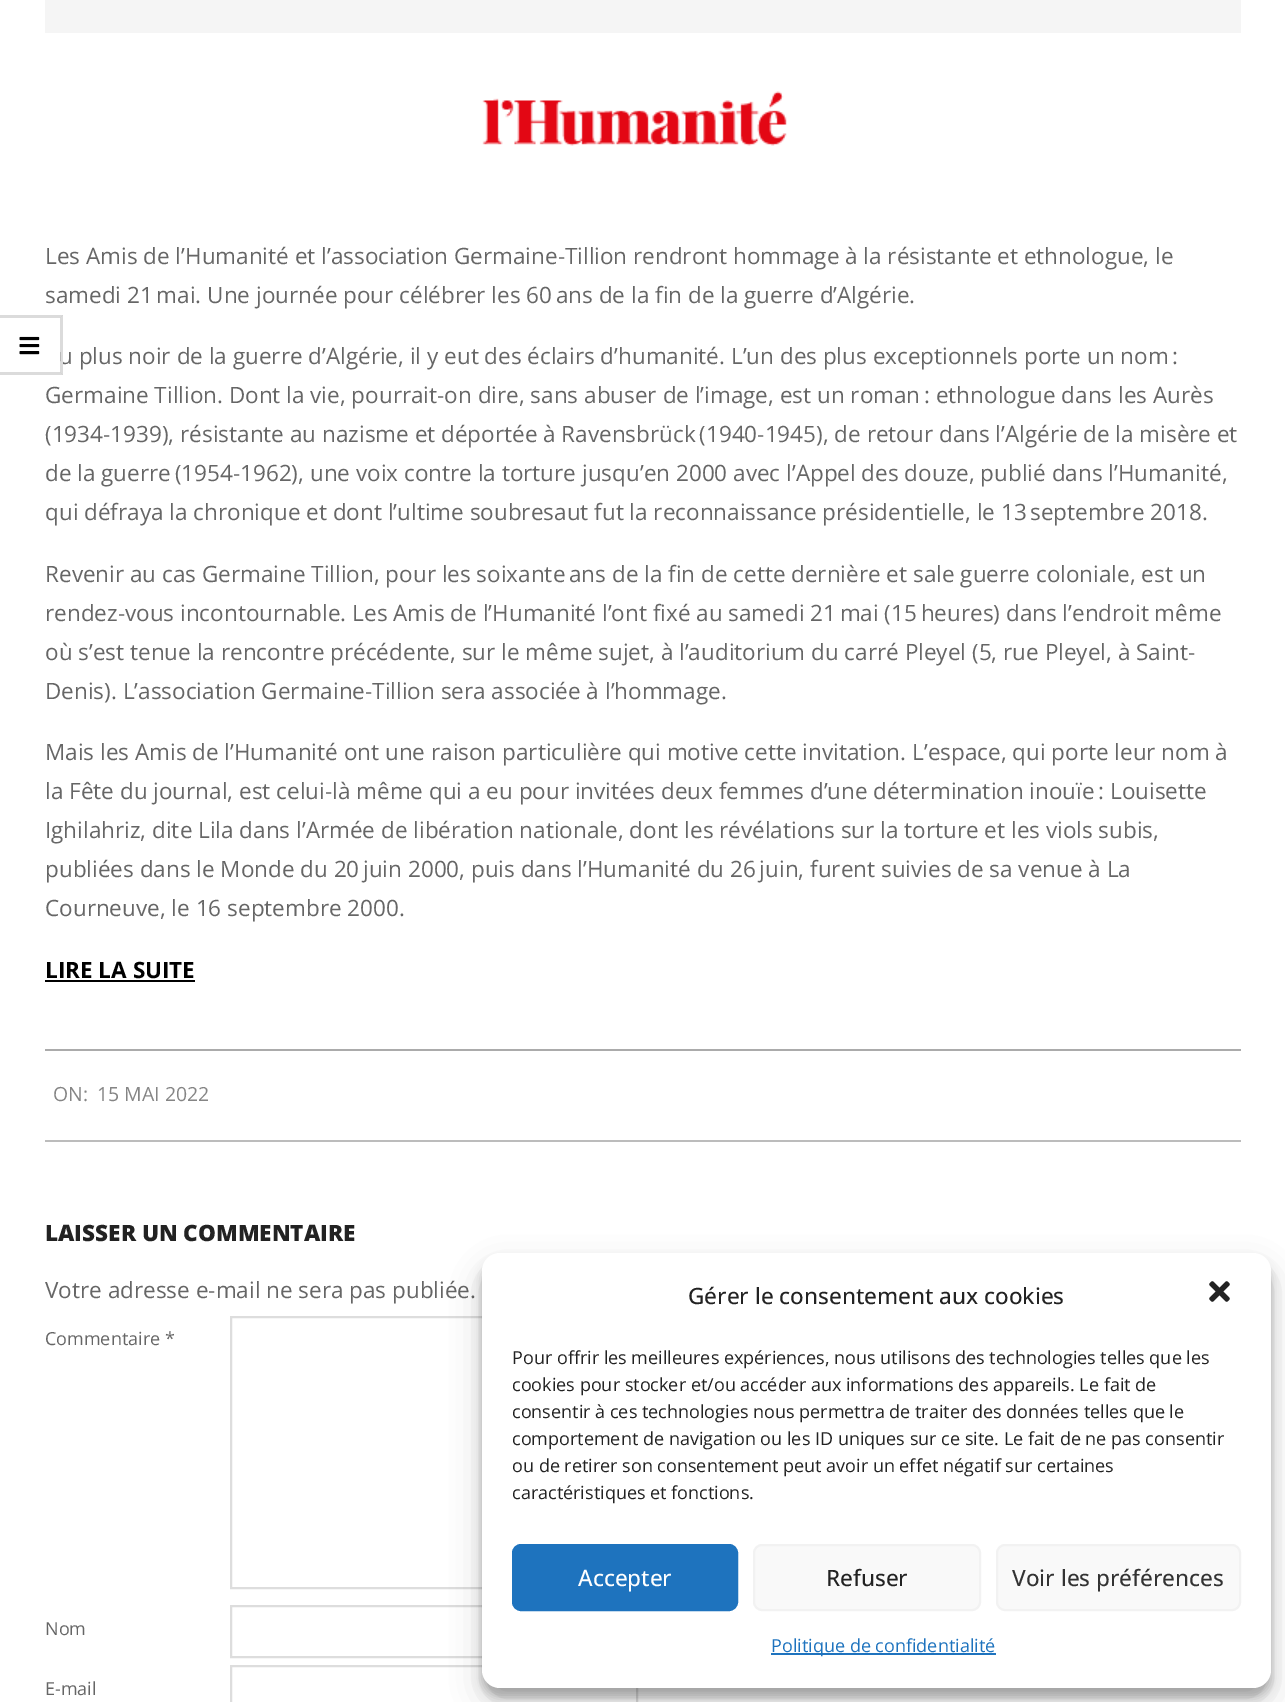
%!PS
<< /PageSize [1285 1702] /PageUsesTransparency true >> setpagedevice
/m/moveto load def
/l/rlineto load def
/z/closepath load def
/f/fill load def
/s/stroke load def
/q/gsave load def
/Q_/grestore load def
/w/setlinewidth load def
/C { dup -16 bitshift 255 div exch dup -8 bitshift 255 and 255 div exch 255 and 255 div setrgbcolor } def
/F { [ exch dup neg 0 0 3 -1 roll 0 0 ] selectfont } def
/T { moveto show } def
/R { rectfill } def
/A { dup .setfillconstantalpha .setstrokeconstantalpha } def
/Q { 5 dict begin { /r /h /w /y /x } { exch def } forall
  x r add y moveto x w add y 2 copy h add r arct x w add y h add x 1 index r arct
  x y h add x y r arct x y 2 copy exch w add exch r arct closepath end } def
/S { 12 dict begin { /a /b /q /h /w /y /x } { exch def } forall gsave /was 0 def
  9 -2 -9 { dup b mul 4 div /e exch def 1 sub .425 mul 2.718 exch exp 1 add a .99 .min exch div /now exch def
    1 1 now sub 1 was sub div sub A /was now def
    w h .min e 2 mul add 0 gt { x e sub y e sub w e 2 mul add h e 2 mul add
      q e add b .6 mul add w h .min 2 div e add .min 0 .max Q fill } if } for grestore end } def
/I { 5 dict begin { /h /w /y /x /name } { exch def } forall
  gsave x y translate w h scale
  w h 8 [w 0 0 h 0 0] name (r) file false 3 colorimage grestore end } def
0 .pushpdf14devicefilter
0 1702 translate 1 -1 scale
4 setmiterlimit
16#FFFFFF C
0 0 1285 1702 R
/OpenSans-Regular 22.5 F
16#666666 C
(u plus noir de la guerre d’Algérie, il y eut des éclairs d’humanité. L’un des plus exceptionnels porte un nom :) 59 364 T
16#FFFFFF C
61 351 2 13 R
16#DBDBDB C
0 315 m 63 0 l -3 3 l -60 0 l z f
0.14 A
16#000000 C
63 315 m 0 60 l -3 -3 l 0 -54 l z f
63 375 m -63 0 l 0 -3 l 60 0 l z f
1 A
(1.rgb) 19 336 21 19 I
16#F5F5F5 C
45 0 1196 33 R
16#ABABAB C
45 1049 1196 2 R
(2.rgb) 482 91 305 55 I
16#666666 C
(Les Amis de l’Humanité et l’association Germaine-Tillion rendront hommage à la résistante et ethnologue, le) 45 264 T
(samedi 21 mai. Une journée pour célébrer les 60 ans de la fin de la guerre d’Algérie.) 45 303 T
(Germaine Tillion. Dont la vie, pourrait-on dire, sans abuser de l’image, est un roman : ethnologue dans les Aurès) 45 403 T
(\(1934-1939\), résistante au nazisme et déportée à Ravensbrück \(1940-1945\), de retour dans l’Algérie de la misère et) 45 442 T
(de la guerre \(1954-1962\), une voix contre la torture jusqu’en 2000 avec l’Appel des douze, publié dans l’Humanité,) 45 481 T
(qui défraya la chronique et dont l’ultime soubresaut fut la reconnaissance présidentielle, le 13 septembre 2018.) 45 520 T
(Revenir au cas Germaine Tillion, pour les soixante ans de la fin de cette dernière et sale guerre coloniale, est un) 45 582 T
(rendez-vous incontournable. Les Amis de l’Humanité l’ont fixé au samedi 21 mai \(15 heures\) dans l’endroit même) 45 621 T
(où s’est tenue la rencontre précédente, sur le même sujet, à l’auditorium du carré Pleyel \(5, rue Pleyel, à Saint-) 45 660 T
(Denis\). L’association Germaine-Tillion sera associée à l’hommage.) 45 699 T
(Mais les Amis de l’Humanité ont une raison particulière qui motive cette invitation. L’espace, qui porte leur nom à) 45 760 T
(la Fête du journal, est celui-là même qui a eu pour invitées deux femmes d’une détermination inouïe : Louisette) 45 799 T
(Ighilahriz, dite Lila dans l’Armée de libération nationale, dont les révélations sur la torture et les viols subis,) 45 838 T
(publiées dans le Monde du 20 juin 2000, puis dans l’Humanité du 26 juin, furent suivies de sa venue à La) 45 877 T
(Courneuve, le 16 septembre 2000.) 45 916 T
/OpenSans-Bold 22.5 F
16#000000 C
(LIRE LA SUITE) 45 978 T
45 980 150 2 R
16#BCBCBC C
45 1140 1196 2 R
/OpenSans-Regular 19.5 F
16#858585 C
(ON:) 53 1101 T
(15 MAI 2022) 97 1101 T
/OpenSans-ExtraBold 22.5 F
16#222222 C
(LAISSER UN COMMENTAIRE) 45 1241 T
/OpenSans-Regular 22.5 F
16#666666 C
(Votre adresse e-mail ne sera pas publiée.) 45 1298 T
/OpenSans-Regular 18 F
(Commentaire *) 45 1345 T
16#DDDDDD C
2 w
231 1317 587 271 rectstroke
16#666666 C
(Nom) 45 1635 T
16#DDDDDD C
231 1606 406 51 rectstroke
16#666666 C
(E-mail) 45 1695 T
16#DDDDDD C
231 1666 406 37 rectstroke
16#000000 C
482 1262 789 435 18 4.5 .23 S
482 1268 789 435 18 15 .19 S
16#FFFFFF C
482 1253 789 435 18 Q f
/OpenSans-Medium 22.5 F
16#222222 C
(Gérer le consentement aux cookies) 688 1304 T
(3.rgb) 1209 1281 21 21 I
/OpenSans-Regular 18 F
(Pour offrir les meilleures expériences, nous utilisons des technologies telles que les) 512 1364 T
(cookies pour stocker et/ou accéder aux informations des appareils. Le fait de) 512 1391 T
(consentir à ces technologies nous permettra de traiter des données telles que le) 512 1418 T
(comportement de navigation ou les ID uniques sur ce site. Le fait de ne pas consentir) 512 1445 T
(ou de retirer son consentement peut avoir un effet négatif sur certaines) 512 1472 T
(caractéristiques et fonctions.) 512 1499 T
16#1E73BE C
513 1545 224 65 8 Q q f Q_
s
/OpenSans-Medium 22.5 F
16#FFFFFF C
(Accepter) 578 1586 T
16#F9F9F9 C
754 1545 226 65 8 Q q f Q_
16#F2F2F2 C
s
16#222222 C
(Refuser) 826 1586 T
16#F9F9F9 C
997 1545 243 65 8 Q q f Q_
16#F2F2F2 C
s
16#333333 C
(Voir les préférences) 1012 1586 T
16#1E73BE C
771 1653 225 2 R
/OpenSans-Regular 18 F
(Politique de confidentialité) 771 1652 T
.poppdf14devicefilter showpage
